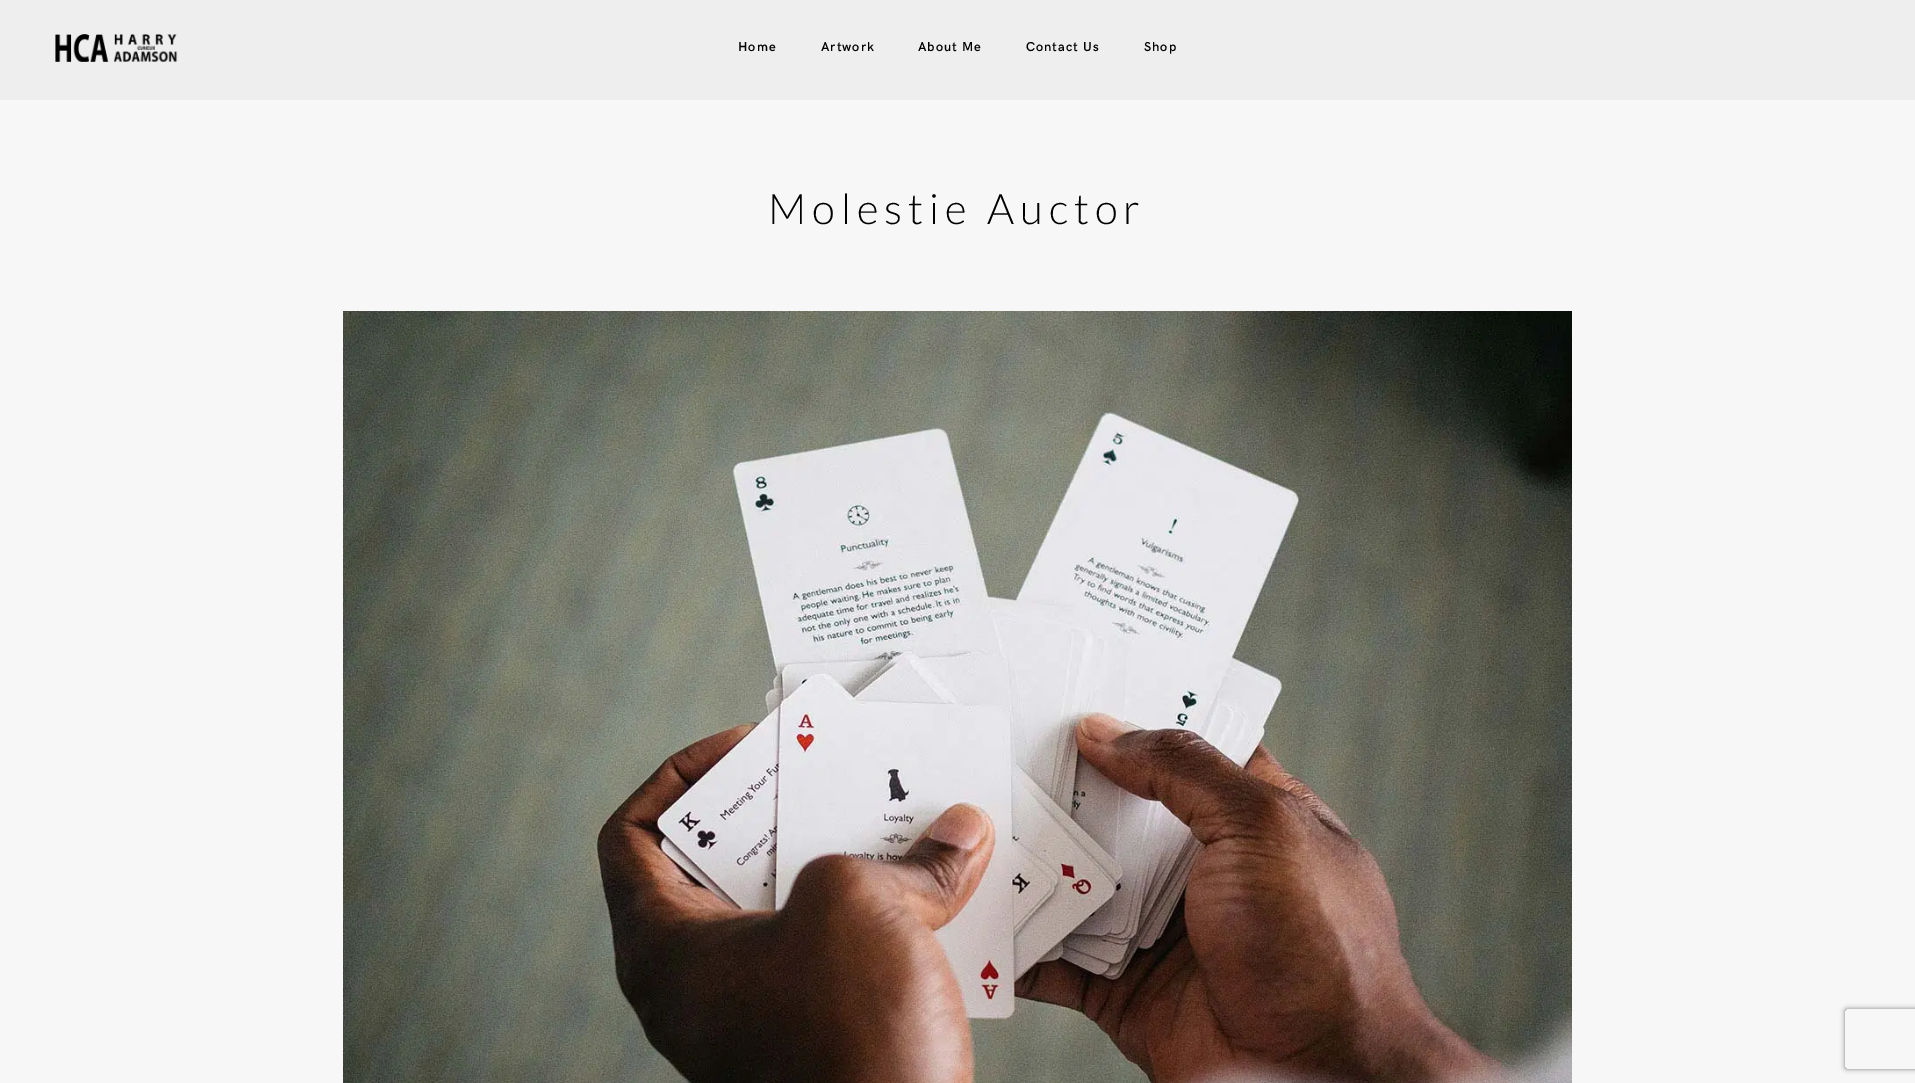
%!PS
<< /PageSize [1915 1083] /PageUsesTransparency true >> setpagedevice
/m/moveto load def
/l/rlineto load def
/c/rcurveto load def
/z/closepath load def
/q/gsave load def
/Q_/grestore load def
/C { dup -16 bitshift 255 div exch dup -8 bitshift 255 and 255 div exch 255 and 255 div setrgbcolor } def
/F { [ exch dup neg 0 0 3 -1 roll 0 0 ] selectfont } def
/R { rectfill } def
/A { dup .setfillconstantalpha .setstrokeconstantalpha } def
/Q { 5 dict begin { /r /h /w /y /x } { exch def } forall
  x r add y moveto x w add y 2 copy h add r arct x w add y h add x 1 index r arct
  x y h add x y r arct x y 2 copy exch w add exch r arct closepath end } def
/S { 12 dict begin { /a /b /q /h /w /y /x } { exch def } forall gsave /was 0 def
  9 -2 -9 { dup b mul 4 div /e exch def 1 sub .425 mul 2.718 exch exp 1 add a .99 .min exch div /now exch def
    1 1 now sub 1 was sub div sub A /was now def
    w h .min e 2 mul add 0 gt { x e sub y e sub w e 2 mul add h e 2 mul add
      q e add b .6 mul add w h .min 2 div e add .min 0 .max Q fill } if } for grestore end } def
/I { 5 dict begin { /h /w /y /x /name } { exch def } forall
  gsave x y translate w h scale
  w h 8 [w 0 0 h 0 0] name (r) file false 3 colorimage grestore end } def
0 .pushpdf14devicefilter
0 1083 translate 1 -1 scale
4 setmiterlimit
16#F7F7F7 C
0 0 1915 1083 R
16#EEEEEE C
0 0 1915 100 R
(1.rgb) 55 34 123 28 I
/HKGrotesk-SemiBold 13 F
16#000000 C
738 51 m 1 0 (Home) ashow
821 51 m 1 0 (Artwork) ashow
918 51 m 1 0 (About Me) ashow
1026 51 m 1 0 (Contact Us) ashow
1144 51 m 1 0 (Shop) ashow
/Lato-Light 42 F
768 224 m 6 0 (Molestie Auctor) ashow
(2.rgb) 343 311 1229 772 I
q
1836 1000 m 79 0 l 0 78 l -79 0 l z 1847 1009 m 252 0 l 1 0 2 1 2 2 c 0 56 l 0 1 -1 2 -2 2 c -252 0 l -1 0 -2 -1 -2 -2 c 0 -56 l 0 -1 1 -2 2 -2 c z eoclip newpath
16#808080 C
1845 1009 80 60 2 2.5 1 S
Q_
.poppdf14devicefilter showpage
